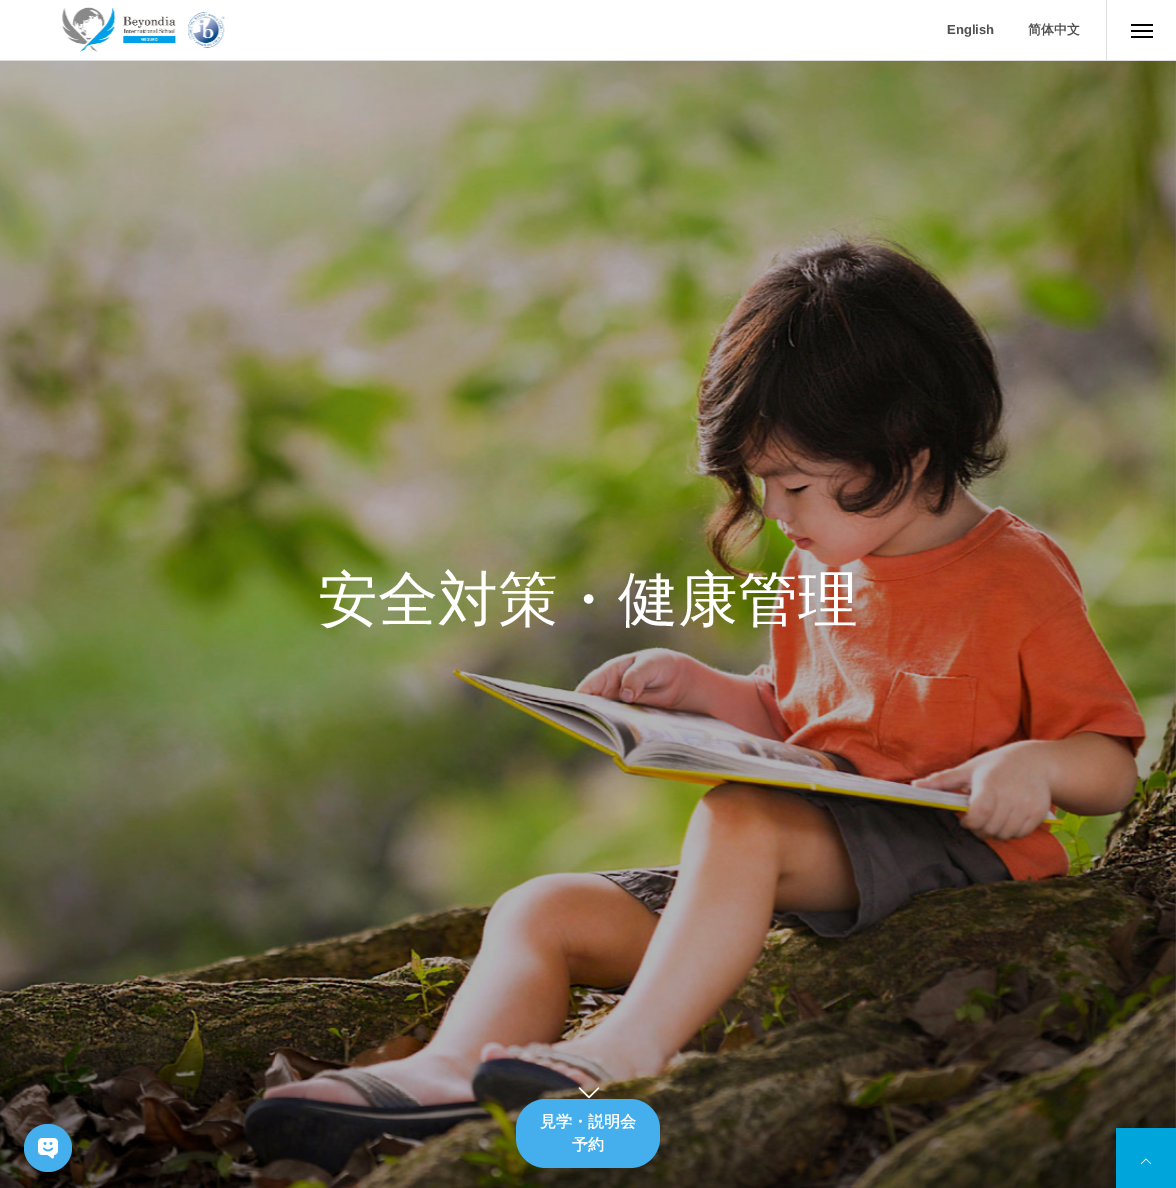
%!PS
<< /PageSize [1176 1188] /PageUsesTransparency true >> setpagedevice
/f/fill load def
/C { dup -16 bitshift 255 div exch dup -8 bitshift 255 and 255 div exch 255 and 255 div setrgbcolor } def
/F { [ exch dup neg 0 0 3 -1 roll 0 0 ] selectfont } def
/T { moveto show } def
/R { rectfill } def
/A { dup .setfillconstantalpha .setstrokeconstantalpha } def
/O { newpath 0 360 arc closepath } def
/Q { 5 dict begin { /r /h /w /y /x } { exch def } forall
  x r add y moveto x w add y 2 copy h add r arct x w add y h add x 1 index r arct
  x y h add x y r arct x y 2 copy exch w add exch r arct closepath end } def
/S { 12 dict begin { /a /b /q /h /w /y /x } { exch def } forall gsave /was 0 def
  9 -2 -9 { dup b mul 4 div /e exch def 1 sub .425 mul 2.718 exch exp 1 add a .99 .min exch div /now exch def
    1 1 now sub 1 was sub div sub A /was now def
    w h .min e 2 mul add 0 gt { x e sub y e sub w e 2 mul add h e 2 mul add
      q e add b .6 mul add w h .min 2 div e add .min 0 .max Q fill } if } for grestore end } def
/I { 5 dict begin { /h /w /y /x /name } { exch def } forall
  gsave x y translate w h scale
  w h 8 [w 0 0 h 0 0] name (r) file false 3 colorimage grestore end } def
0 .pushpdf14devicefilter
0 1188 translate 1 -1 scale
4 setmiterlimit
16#FFFFFF C
0 0 1176 1188 R
16#DDDDDD C
0 60 1176 1 R
(1.rgb) 62 7 163 45 I
/LiberationSans-Bold 13 F
16#505050 C
(English) 947 34 T
/WenQuanYiZenHei-Bold 13 F
(简体中文) 1028 34 T
16#DDDDDD C
1106 0 1 60 R
16#000000 C
1131 24 22 2 R
1131 30 22 2 R
1131 36 22 2 R
(2.rgb) 0 61 1176 1127 I
/WenQuanYiZenHei-Medium 60 F
16#FFFFFF C
(安全対策・健康管理) 318 620 T
(3.rgb) 578 1087 22 12 I
16#00A5DB C
1116 1128 60 60 R
(4.rgb) 1140 1158 12 6 I
16#000000 C
24 1128 48 48 24 4 .2 S
16#44AFEC C
48 1148 24 O f
(5.rgb) 38 1138 20 21 I
16#000000 C
516 1103 144 69 30 5 .15 S
16#44AFEC C
516 1099 144 69 30 Q f
/WenQuanYiZenHei-Bold 16 F
16#FFFFFF C
(見学・説明会) 540 1127 T
(予約) 572 1150 T
.poppdf14devicefilter showpage
